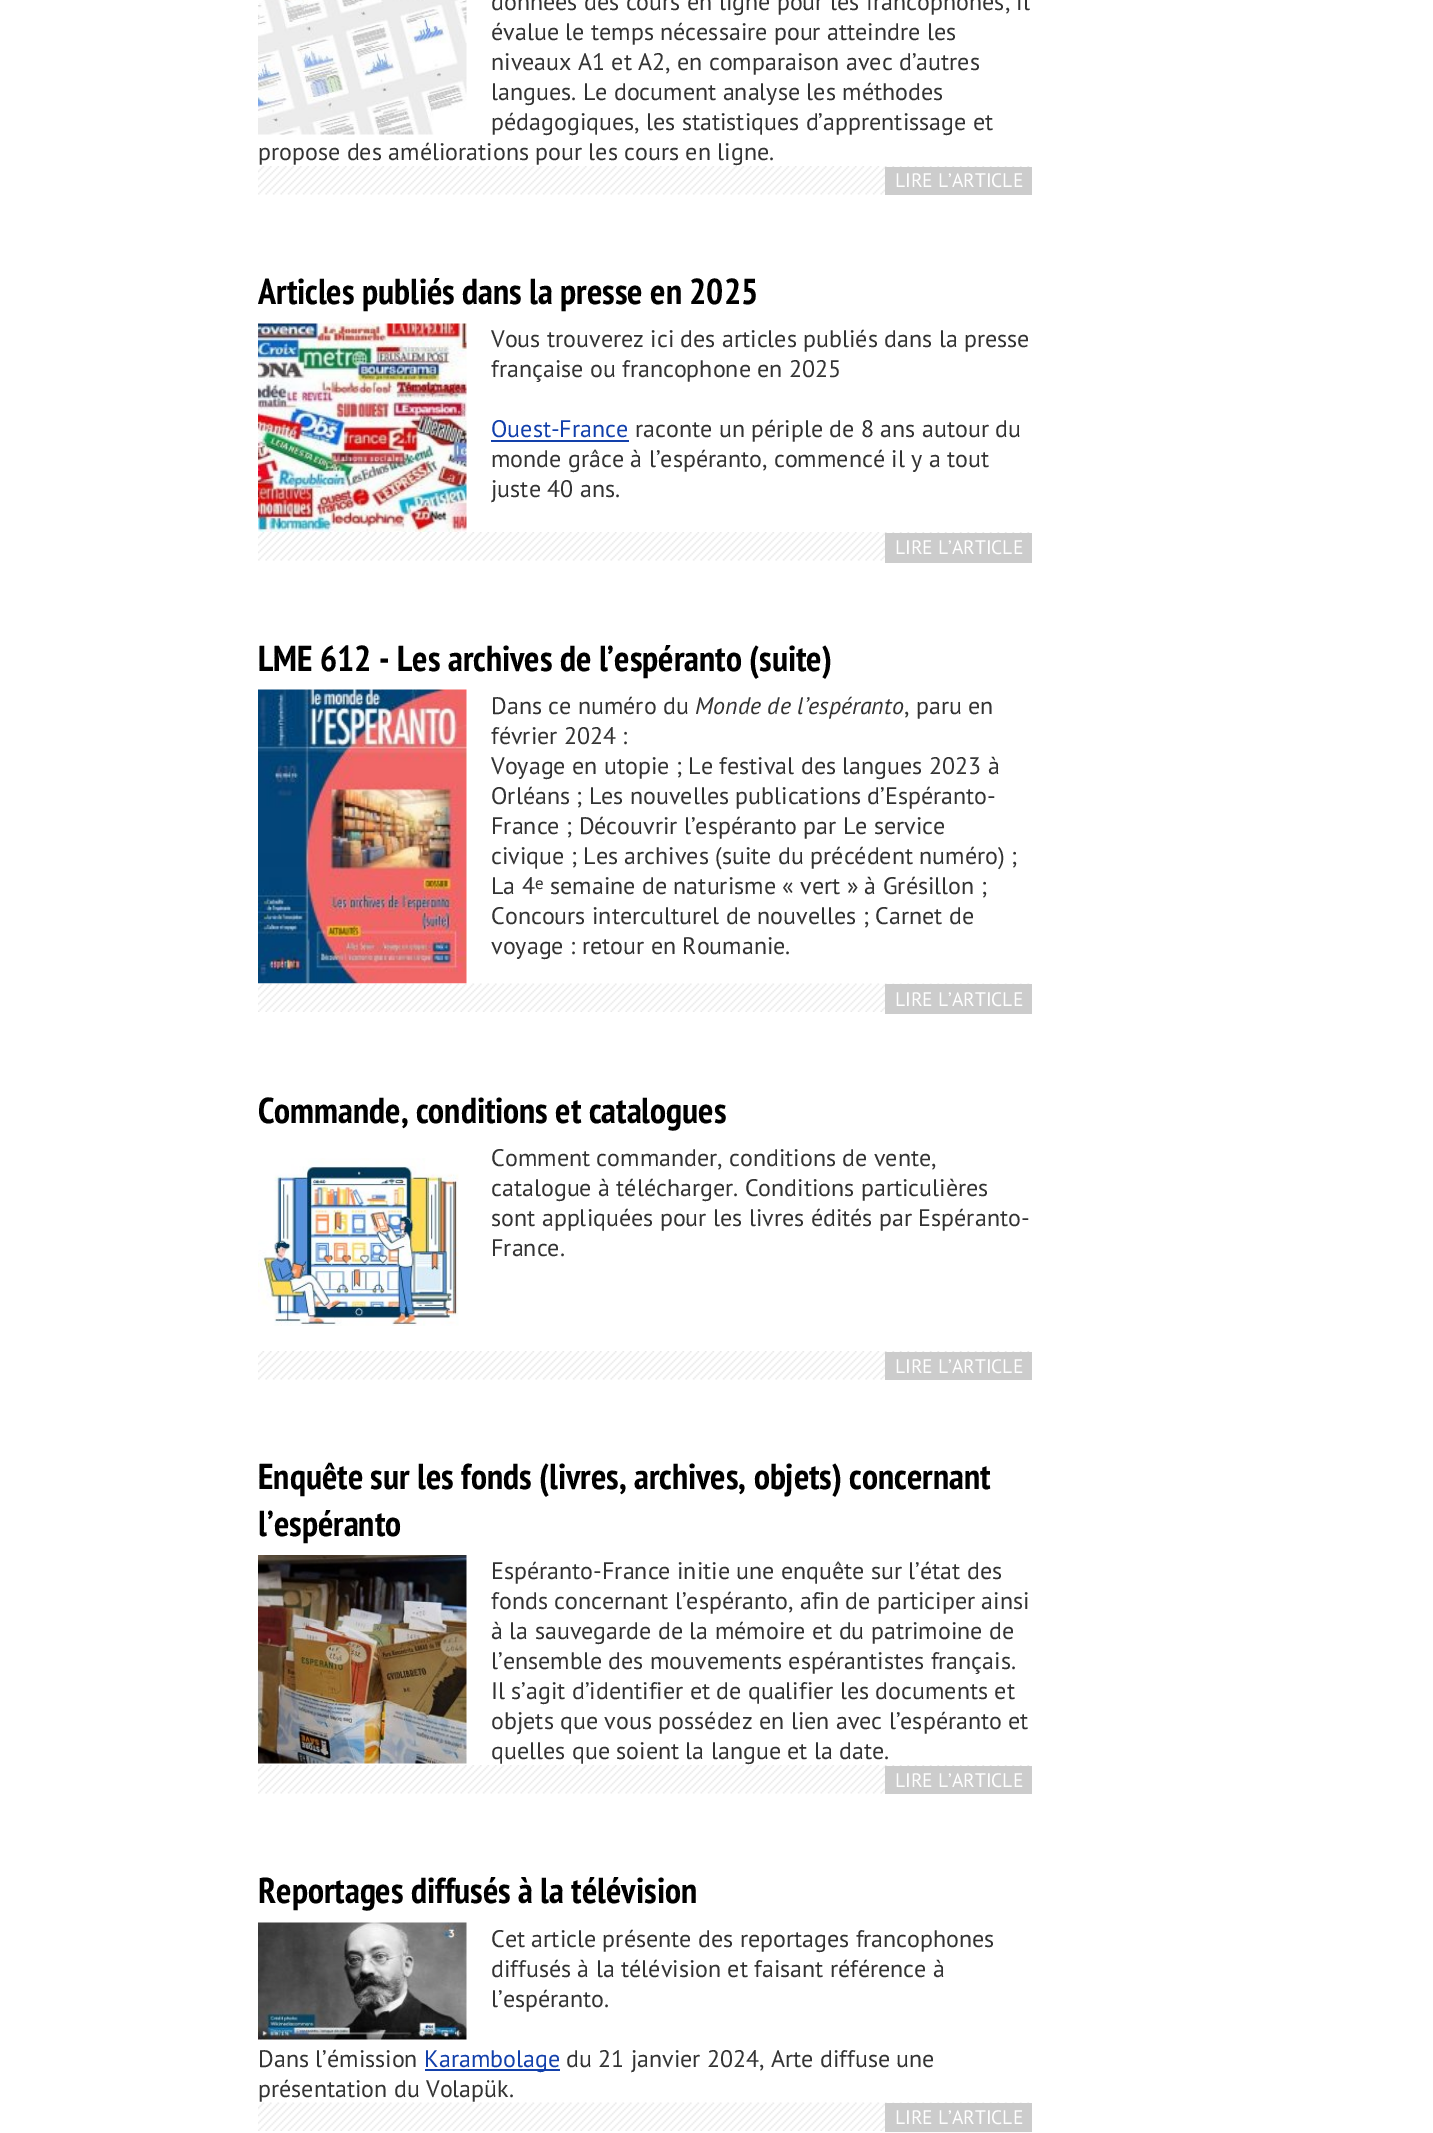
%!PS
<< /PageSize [1433 2133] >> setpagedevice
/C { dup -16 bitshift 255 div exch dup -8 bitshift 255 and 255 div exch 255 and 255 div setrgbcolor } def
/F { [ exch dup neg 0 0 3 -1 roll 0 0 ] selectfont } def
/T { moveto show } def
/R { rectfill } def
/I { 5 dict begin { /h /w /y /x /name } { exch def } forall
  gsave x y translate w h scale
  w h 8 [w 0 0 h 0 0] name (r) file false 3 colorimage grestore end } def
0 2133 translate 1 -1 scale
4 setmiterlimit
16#FFFFFF C
0 0 1433 2133 R
(1.rgb) 258 0 209 135 I
/PTSans-Regular 24 F
16#333333 C
(données des cours en ligne pour les francophones, il) 491 10 T
(évalue le temps nécessaire pour atteindre les) 491 40 T
(niveaux A1 et A2, en comparaison avec d’autres) 491 70 T
(langues. Le document analyse les méthodes) 491 100 T
(pédagogiques, les statistiques d’apprentissage et) 491 130 T
(propose des améliorations pour les cours en ligne.) 258 160 T
(2.rgb) 258 166 774 29 I
16#CCCCCC C
885 167 147 28 R
/PTSans-Regular 19.5 F
16#FFFFFF C
(LIRE L’ARTICLE) 895 187 T
/PTSansNarrow-Bold 36 F
16#000000 C
(Articles publiés dans la presse en 2025) 258 304 T
(3.rgb) 258 323 209 209 I
/PTSans-Regular 24 F
16#333333 C
(Vous trouverez ici des articles publiés dans la presse) 491 347 T
(française ou francophone en 2025) 491 377 T
16#1240AB C
(Ouest-France) 491 437 T
491 440 138 2 R
16#333333 C
(raconte un périple de 8 ans autour du) 635 437 T
(monde grâce à l’espéranto, commencé il y a tout) 491 467 T
(juste 40 ans.) 491 497 T
(4.rgb) 258 532 774 29 I
16#CCCCCC C
885 533 147 30 R
/PTSans-Regular 19.5 F
16#FFFFFF C
(LIRE L’ARTICLE) 895 554 T
/PTSansNarrow-Bold 36 F
16#000000 C
(LME 612 - Les archives de l’espéranto \(suite\)) 258 671 T
(6.rgb) 258 983 774 29 I
(5.rgb) 258 689 209 295 I
/PTSans-Regular 24 F
16#333333 C
(Dans ce numéro du) 491 714 T
/PTSans-Italic 24 F
(Monde de l’espéranto) 695 714 T
/PTSans-Regular 24 F
(, paru en) 904 714 T
(février 2024 :) 491 744 T
(Voyage en utopie ; Le festival des langues 2023 à) 491 774 T
(Orléans ; Les nouvelles publications d’Espéranto-) 491 804 T
(France ; Découvrir l’espéranto par Le service) 491 834 T
(civique ; Les archives \(suite du précédent numéro\) ;) 491 864 T
(La 4) 491 894 T
/PTSans-Regular 17 F
(e) 535 889 T
/PTSans-Regular 24 F
(semaine de naturisme « vert » à Grésillon ;) 550 894 T
(Concours interculturel de nouvelles ; Carnet de) 491 924 T
(voyage : retour en Roumanie.) 491 954 T
16#CCCCCC C
885 984 147 30 R
/PTSans-Regular 19.5 F
16#FFFFFF C
(LIRE L’ARTICLE) 895 1006 T
/PTSansNarrow-Bold 36 F
16#000000 C
(Commande, conditions et catalogues) 258 1123 T
(7.rgb) 258 1158 201 168 I
/PTSans-Regular 24 F
16#333333 C
(Comment commander, conditions de vente,) 491 1166 T
(catalogue à télécharger. Conditions particulières) 491 1196 T
(sont appliquées pour les livres édités par Espéranto-) 491 1226 T
(France.) 491 1256 T
(4.rgb) 258 1351 774 29 I
16#CCCCCC C
885 1352 147 28 R
/PTSans-Regular 19.5 F
16#FFFFFF C
(LIRE L’ARTICLE) 895 1373 T
/PTSansNarrow-Bold 36 F
16#000000 C
(Enquête sur les fonds \(livres, archives, objets\) concernant) 258 1489 T
(l’espéranto) 258 1536 T
(8.rgb) 258 1555 209 209 I
/PTSans-Regular 24 F
16#333333 C
(Espéranto-France initie une enquête sur l’état des) 491 1579 T
(fonds concernant l’espéranto, afin de participer ainsi) 491 1609 T
(à la sauvegarde de la mémoire et du patrimoine de) 491 1639 T
(l’ensemble des mouvements espérantistes français.) 491 1669 T
(Il s’agit d’identifier et de qualifier les documents et) 491 1699 T
(objets que vous possédez en lien avec l’espéranto et) 491 1729 T
(quelles que soient la langue et la date.) 491 1759 T
(9.rgb) 258 1765 774 29 I
16#CCCCCC C
885 1766 147 28 R
/PTSans-Regular 19.5 F
16#FFFFFF C
(LIRE L’ARTICLE) 895 1787 T
/PTSansNarrow-Bold 36 F
16#000000 C
(Reportages diffusés à la télévision) 258 1903 T
(10.rgb) 258 1922 209 118 I
/PTSans-Regular 24 F
16#333333 C
(Cet article présente des reportages francophones) 491 1947 T
(diffusés à la télévision et faisant référence à) 491 1977 T
(l’espéranto.) 491 2007 T
(Dans l’émission) 258 2067 T
16#1240AB C
425 2069 135 2 R
(Karambolage) 424 2067 T
16#333333 C
(du 21 janvier 2024, Arte diffuse une) 566 2067 T
(présentation du Volapük.) 258 2097 T
(11.rgb) 258 2102 774 29 I
16#CCCCCC C
885 2103 147 29 R
/PTSans-Regular 19.5 F
16#FFFFFF C
(LIRE L’ARTICLE) 895 2124 T
showpage
